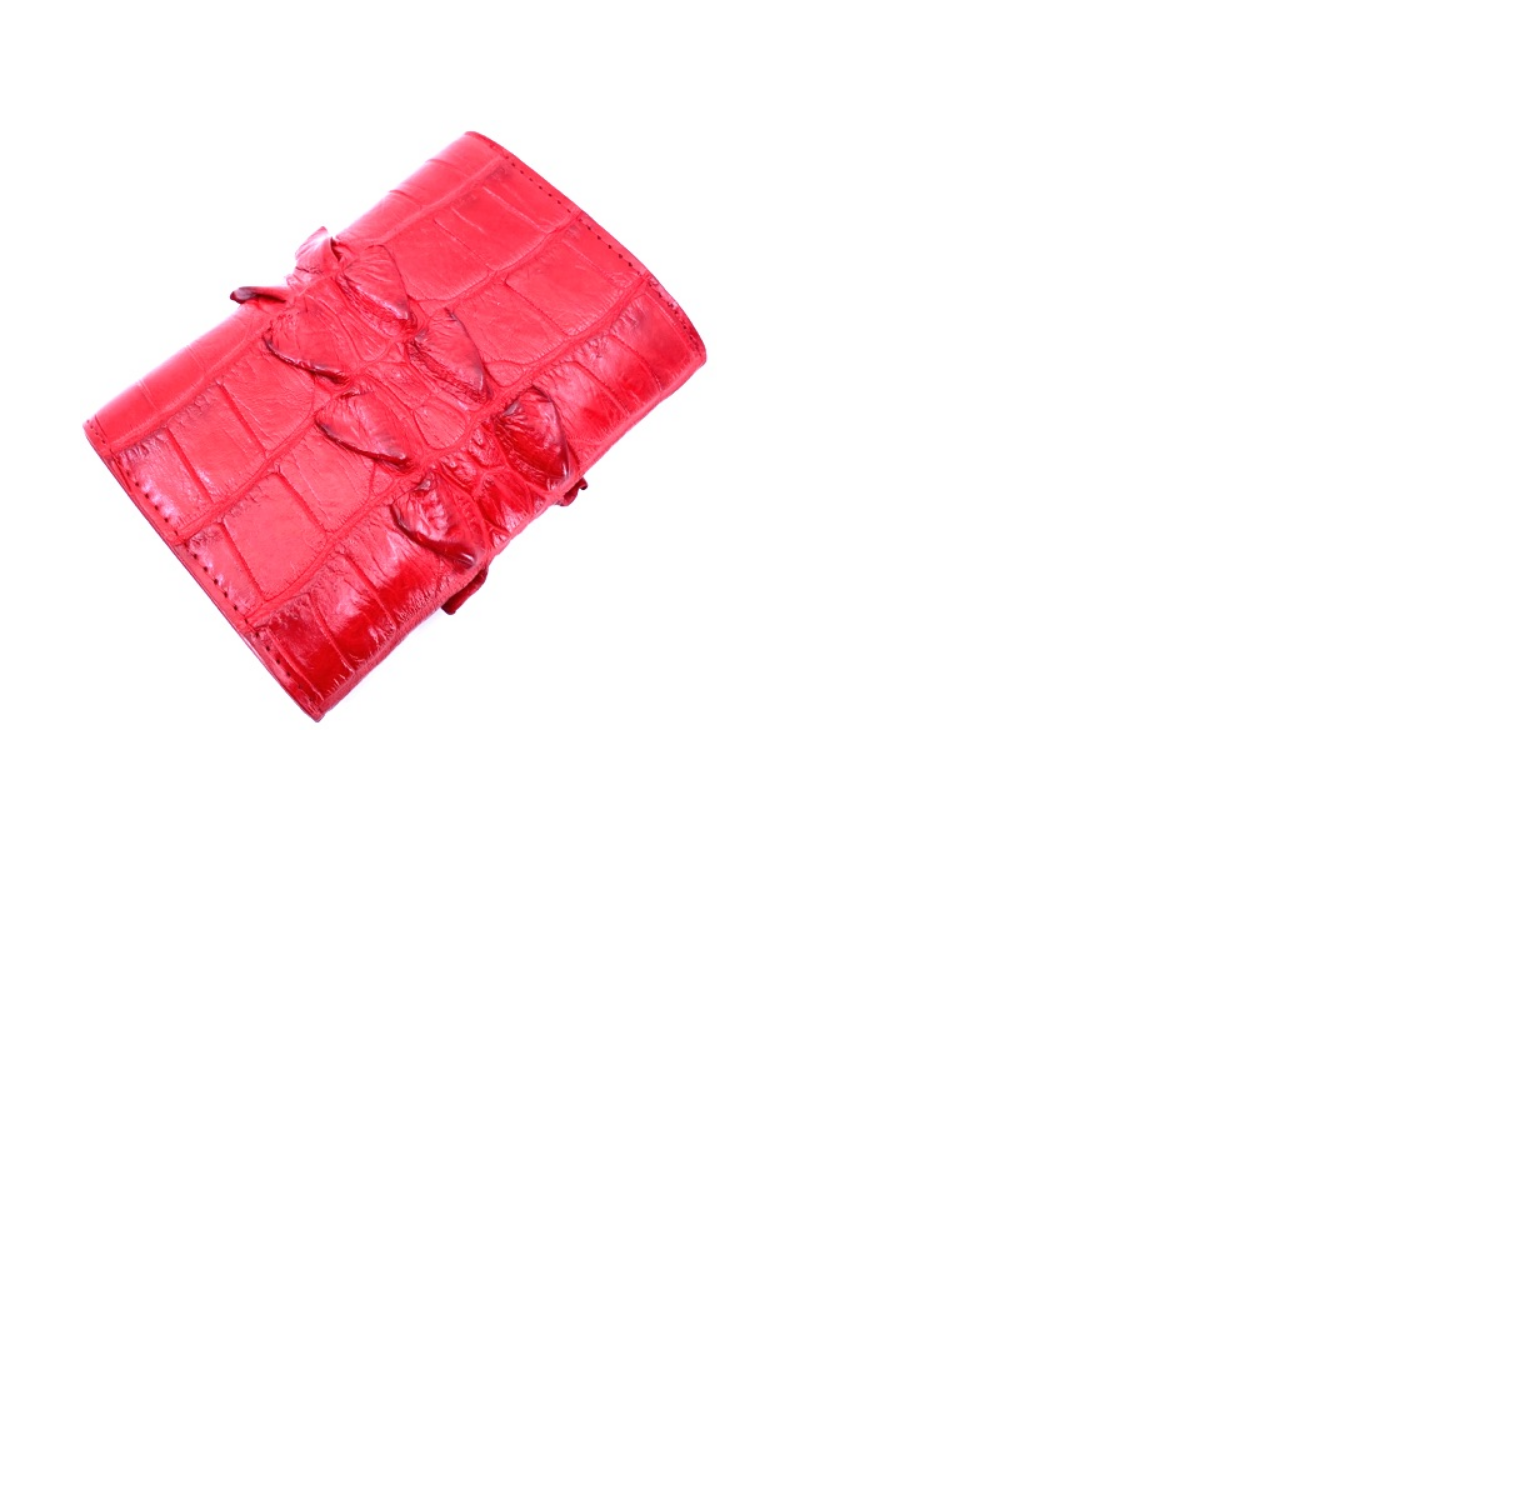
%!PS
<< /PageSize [1518 1510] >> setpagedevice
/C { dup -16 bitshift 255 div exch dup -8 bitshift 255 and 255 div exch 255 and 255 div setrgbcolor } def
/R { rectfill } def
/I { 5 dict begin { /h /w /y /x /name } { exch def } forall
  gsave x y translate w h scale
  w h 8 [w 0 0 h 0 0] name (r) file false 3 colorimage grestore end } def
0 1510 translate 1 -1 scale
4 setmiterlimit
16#FFFFFF C
0 0 1518 1510 R
(1.rgb) 80 120 637 610 I
showpage
